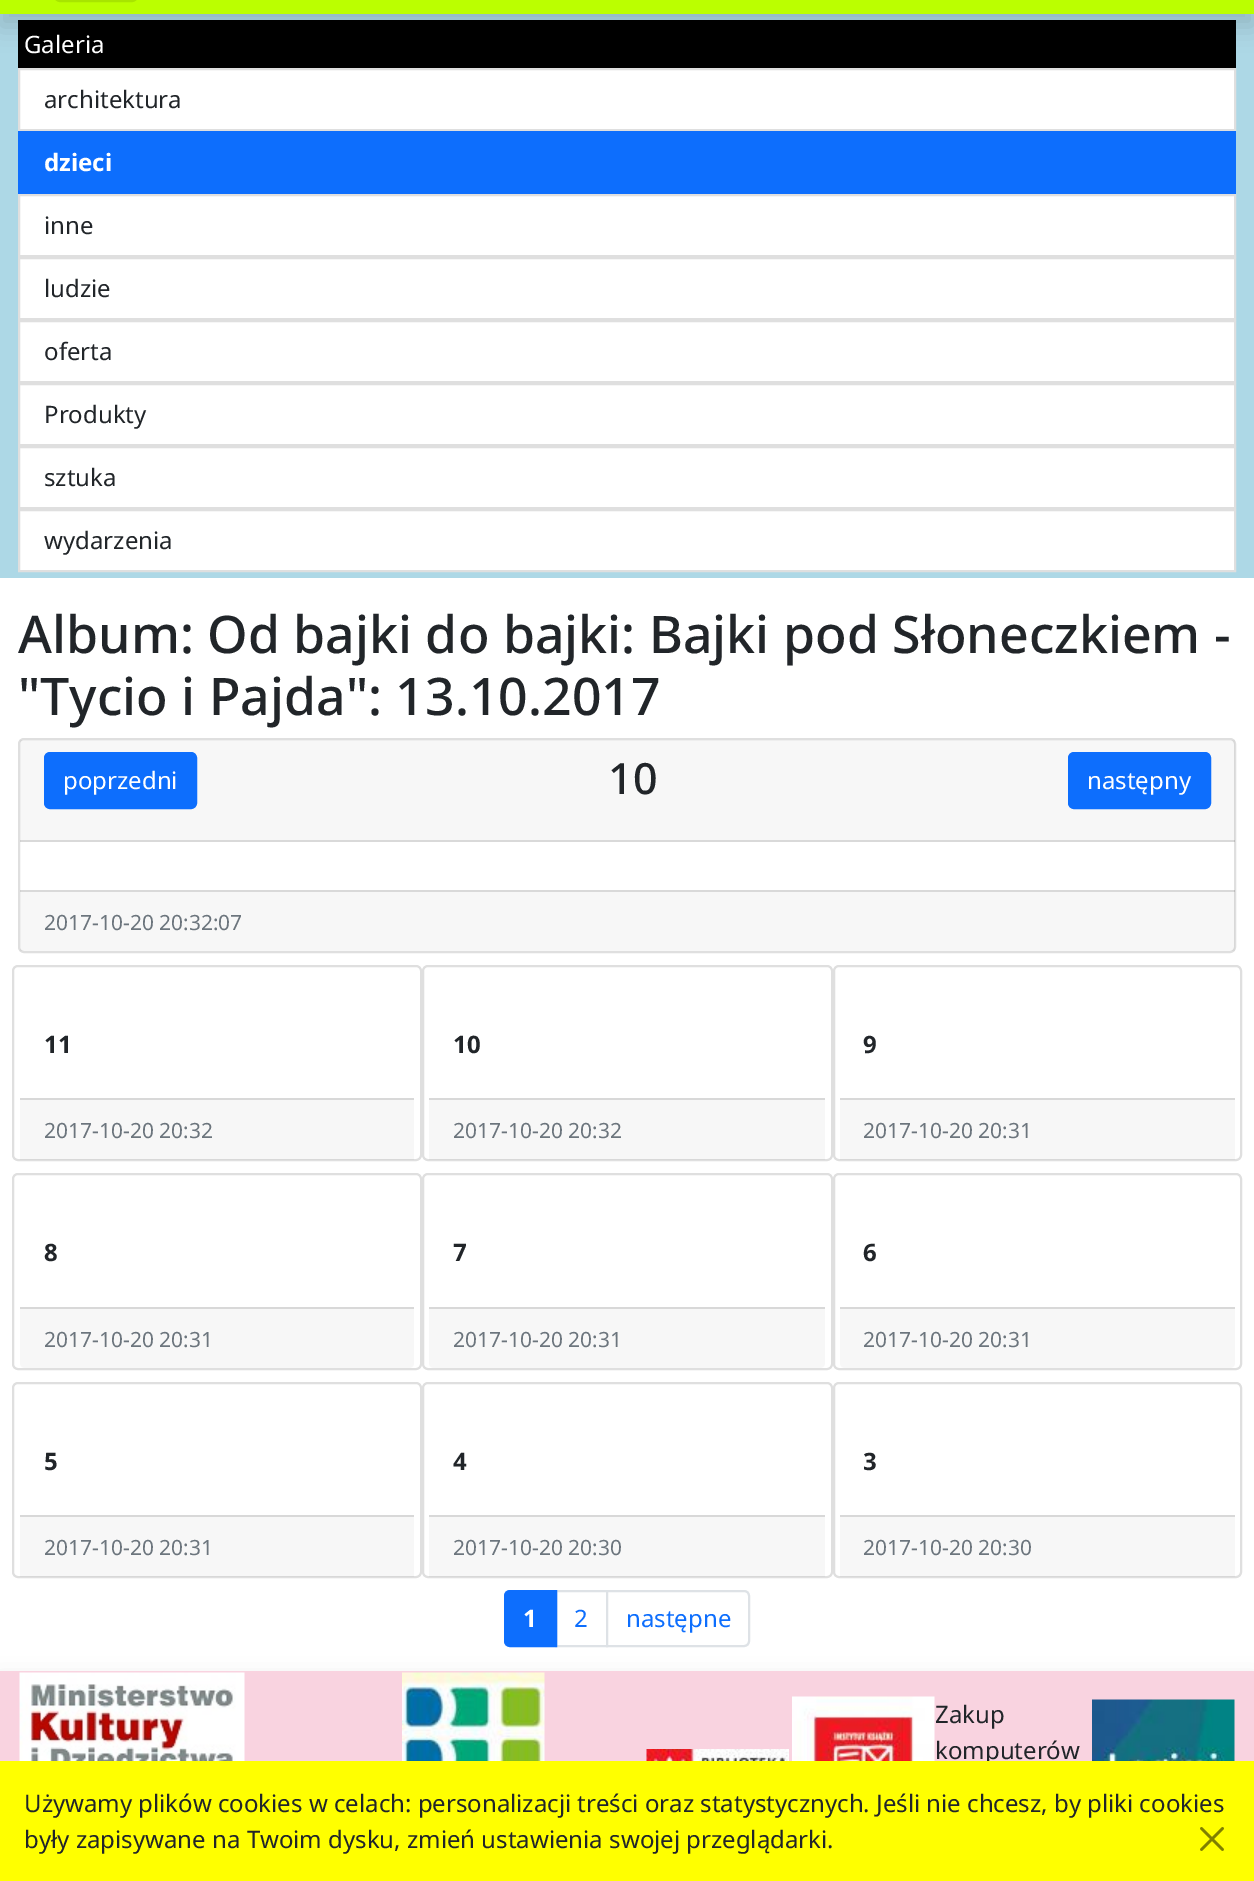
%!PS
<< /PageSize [1254 1881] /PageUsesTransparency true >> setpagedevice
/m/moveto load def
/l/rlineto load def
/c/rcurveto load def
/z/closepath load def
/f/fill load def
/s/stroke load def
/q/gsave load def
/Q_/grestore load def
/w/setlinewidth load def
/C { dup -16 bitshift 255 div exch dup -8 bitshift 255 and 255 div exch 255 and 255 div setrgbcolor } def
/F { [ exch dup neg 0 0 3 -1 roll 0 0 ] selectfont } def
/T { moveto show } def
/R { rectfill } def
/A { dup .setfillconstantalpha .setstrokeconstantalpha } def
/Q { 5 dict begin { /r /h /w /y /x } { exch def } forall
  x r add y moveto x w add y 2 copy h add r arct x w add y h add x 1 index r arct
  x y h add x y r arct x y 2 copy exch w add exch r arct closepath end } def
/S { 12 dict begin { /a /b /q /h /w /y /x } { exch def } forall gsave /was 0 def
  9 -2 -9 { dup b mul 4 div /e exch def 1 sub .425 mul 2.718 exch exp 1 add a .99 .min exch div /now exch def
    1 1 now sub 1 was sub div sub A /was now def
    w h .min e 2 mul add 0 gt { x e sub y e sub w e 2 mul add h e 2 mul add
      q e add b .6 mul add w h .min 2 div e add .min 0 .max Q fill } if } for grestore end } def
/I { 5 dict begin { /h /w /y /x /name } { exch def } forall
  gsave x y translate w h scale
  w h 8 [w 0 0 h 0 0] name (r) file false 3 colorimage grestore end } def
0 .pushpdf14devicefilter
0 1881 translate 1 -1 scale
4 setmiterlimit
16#BBFF00 C
0 0 1254 1881 R
16#ADD8E6 C
0 14 1254 564 R
16#000000 C
18 20 1218 48 R
q
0 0 m 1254 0 l 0 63 l -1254 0 l z 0 -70 m 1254 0 l 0 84 l -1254 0 l z eoclip newpath
0 -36 1254 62 0 12 .15 S
Q_
16#A8E500 C
2 w
55 -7 82 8 5 Q s
/NotoSans-Regular 24 F
16#FFFFFF C
(Galeria) 24 53 T
19 69 m 1216 0 l 0 61 l -1216 0 l z q f Q_
16#DFDFDF C
s
16#212529 C
(architektura) 44 108 T
16#0D6EFD C
18 131 1218 63 R
/NotoSans-Bold 24 F
16#FFFFFF C
(dzieci) 44 171 T
19 195 m 1216 0 l 0 61 l -1216 0 l z q f Q_
16#DFDFDF C
s
/NotoSans-Regular 24 F
16#212529 C
(inne) 44 234 T
16#FFFFFF C
19 258 m 1216 0 l 0 61 l -1216 0 l z q f Q_
16#DFDFDF C
s
16#212529 C
(ludzie) 44 297 T
16#FFFFFF C
19 321 m 1216 0 l 0 61 l -1216 0 l z q f Q_
16#DFDFDF C
s
16#212529 C
(oferta) 44 360 T
16#FFFFFF C
19 384 m 1216 0 l 0 61 l -1216 0 l z q f Q_
16#DFDFDF C
s
16#212529 C
(Produkty) 44 423 T
16#FFFFFF C
19 447 m 1216 0 l 0 61 l -1216 0 l z q f Q_
16#DFDFDF C
s
16#212529 C
(sztuka) 44 486 T
16#FFFFFF C
19 510 m 1216 0 l 0 61 l -1216 0 l z q f Q_
16#DFDFDF C
s
16#212529 C
(wydarzenia) 44 549 T
16#FFFFFF C
0 578 1254 1093 R
/NotoSans-Medium 51.8 F
16#212529 C
(Album: Od bajki do bajki: Bajki pod Słoneczkiem -) 18 653 T
("Tycio i Pajda": 13.10.2017) 18 715 T
16#DFDFDF C
19 739 1216 213 5 Q s
0.03 A
16#000000 C
20 740 1215 102 R
0.12 A
20 840 1215 2 R
1 A
16#0D6EFD C
45 753 151 55 5 Q q f Q_
s
/NotoSans-Regular 24 F
16#FFFFFF C
(poprzedni) 63 789 T
/NotoSans-Medium 43 F
16#212529 C
(10) 608 794 T
16#0D6EFD C
1069 753 141 55 5 Q q f Q_
s
/NotoSans-Regular 24 F
16#FFFFFF C
(następny) 1087 789 T
0.03 A
16#000000 C
20 890 1215 61 R
0.12 A
20 890 1215 2 R
/NotoSans-Regular 21 F
1 A
16#6C757D C
(2017-10-20 20:32:07) 44 930 T
16#DFDFDF C
13 966 408 194 5 Q s
/NotoSans-Bold 24 F
16#212529 C
(11) 44 1053 T
0.03 A
16#000000 C
20 1100 394 60 R
1 A
16#D8D8D8 C
20 1098 394 2 R
/NotoSans-Regular 21 F
16#6C757D C
(2017-10-20 20:32) 44 1138 T
16#DFDFDF C
423 966 409 194 5 Q s
/NotoSans-Bold 24 F
16#212529 C
(10) 453 1053 T
0.03 A
16#000000 C
429 1100 396 60 R
1 A
16#D8D8D8 C
429 1098 396 2 R
/NotoSans-Regular 21 F
16#6C757D C
(2017-10-20 20:32) 453 1138 T
16#DFDFDF C
834 966 407 194 5 Q s
/NotoSans-Bold 24 F
16#212529 C
(9) 863 1053 T
0.03 A
16#000000 C
840 1100 395 60 R
1 A
16#D8D8D8 C
840 1098 395 2 R
/NotoSans-Regular 21 F
16#6C757D C
(2017-10-20 20:31) 863 1138 T
16#DFDFDF C
13 1174 408 195 5 Q s
/NotoSans-Bold 24 F
16#212529 C
(8) 44 1261 T
16#F7F7F7 C
20 1307 m 394 0 l 0 56 l 0 3 -2 5 -5 5 c -384 0 l -3 0 -5 -2 -5 -5 c z f
16#D8D8D8 C
20 1307 394 2 R
/NotoSans-Regular 21 F
16#6C757D C
(2017-10-20 20:31) 44 1347 T
16#DFDFDF C
423 1174 409 195 5 Q s
/NotoSans-Bold 24 F
16#212529 C
(7) 453 1261 T
16#F7F7F7 C
429 1307 m 396 0 l 0 56 l 0 3 -2 5 -5 5 c -386 0 l -3 0 -5 -2 -5 -5 c z f
16#D8D8D8 C
429 1307 396 2 R
/NotoSans-Regular 21 F
16#6C757D C
(2017-10-20 20:31) 453 1347 T
16#DFDFDF C
834 1174 407 195 5 Q s
/NotoSans-Bold 24 F
16#212529 C
(6) 863 1261 T
16#F7F7F7 C
840 1307 m 395 0 l 0 56 l 0 3 -2 5 -5 5 c -385 0 l -3 0 -5 -2 -5 -5 c z f
16#D8D8D8 C
840 1307 395 2 R
/NotoSans-Regular 21 F
16#6C757D C
(2017-10-20 20:31) 863 1347 T
16#DFDFDF C
13 1383 408 194 5 Q s
/NotoSans-Bold 24 F
16#212529 C
(5) 44 1470 T
0.03 A
16#000000 C
20 1517 394 60 R
1 A
16#D8D8D8 C
20 1515 394 2 R
/NotoSans-Regular 21 F
16#6C757D C
(2017-10-20 20:31) 44 1555 T
16#DFDFDF C
423 1383 409 194 5 Q s
/NotoSans-Bold 24 F
16#212529 C
(4) 453 1470 T
0.03 A
16#000000 C
429 1517 396 60 R
1 A
16#D8D8D8 C
429 1515 396 2 R
/NotoSans-Regular 21 F
16#6C757D C
(2017-10-20 20:30) 453 1555 T
16#DFDFDF C
834 1383 407 194 5 Q s
/NotoSans-Bold 24 F
16#212529 C
(3) 863 1470 T
0.03 A
16#000000 C
840 1517 395 60 R
1 A
16#D8D8D8 C
840 1515 395 2 R
/NotoSans-Regular 21 F
16#6C757D C
(2017-10-20 20:30) 863 1555 T
16#000000 C
0 1683 1254 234 0 12 .15 S
16#DEE2E6 C
556 1591 51 55 rectstroke
16#0D6EFD C
510 1591 m 46 0 l 0 55 l -46 0 l -3 0 -5 -2 -5 -5 c 0 -45 l 0 -3 2 -5 5 -5 c z q f Q_
s
/NotoSans-Bold 24 F
16#FFFFFF C
(1) 523 1627 T
/NotoSans-Regular 24 F
16#0D6EFD C
(2) 574 1627 T
16#FFFFFF C
607 1591 m 137 0 l 3 0 5 2 5 5 c 0 45 l 0 3 -2 5 -5 5 c -137 0 l z q f Q_
16#DEE2E6 C
s
16#0D6EFD C
(następne) 626 1627 T
16#F9D3E0 C
0 1671 1254 90 R
(1.rgb) 19 1672 226 89 I
(2.rgb) 402 1672 143 89 I
(3.rgb) 646 1749 143 12 I
(4.rgb) 792 1696 143 65 I
16#212529 C
(Zakup) 935 1723 T
(komputerów) 935 1759 T
(5.rgb) 1092 1699 143 62 I
16#FFFF00 C
0 1761 1254 120 R
16#212529 C
(Używamy plików cookies w celach: personalizacji treści oraz statystycznych. Jeśli nie chcesz, by pliki cookies) 24 1812 T
(były zapisywane na Twoim dysku, zmień ustawienia swojej przeglądarki.) 24 1848 T
(6.rgb) 1200 1827 24 24 I
.poppdf14devicefilter showpage
